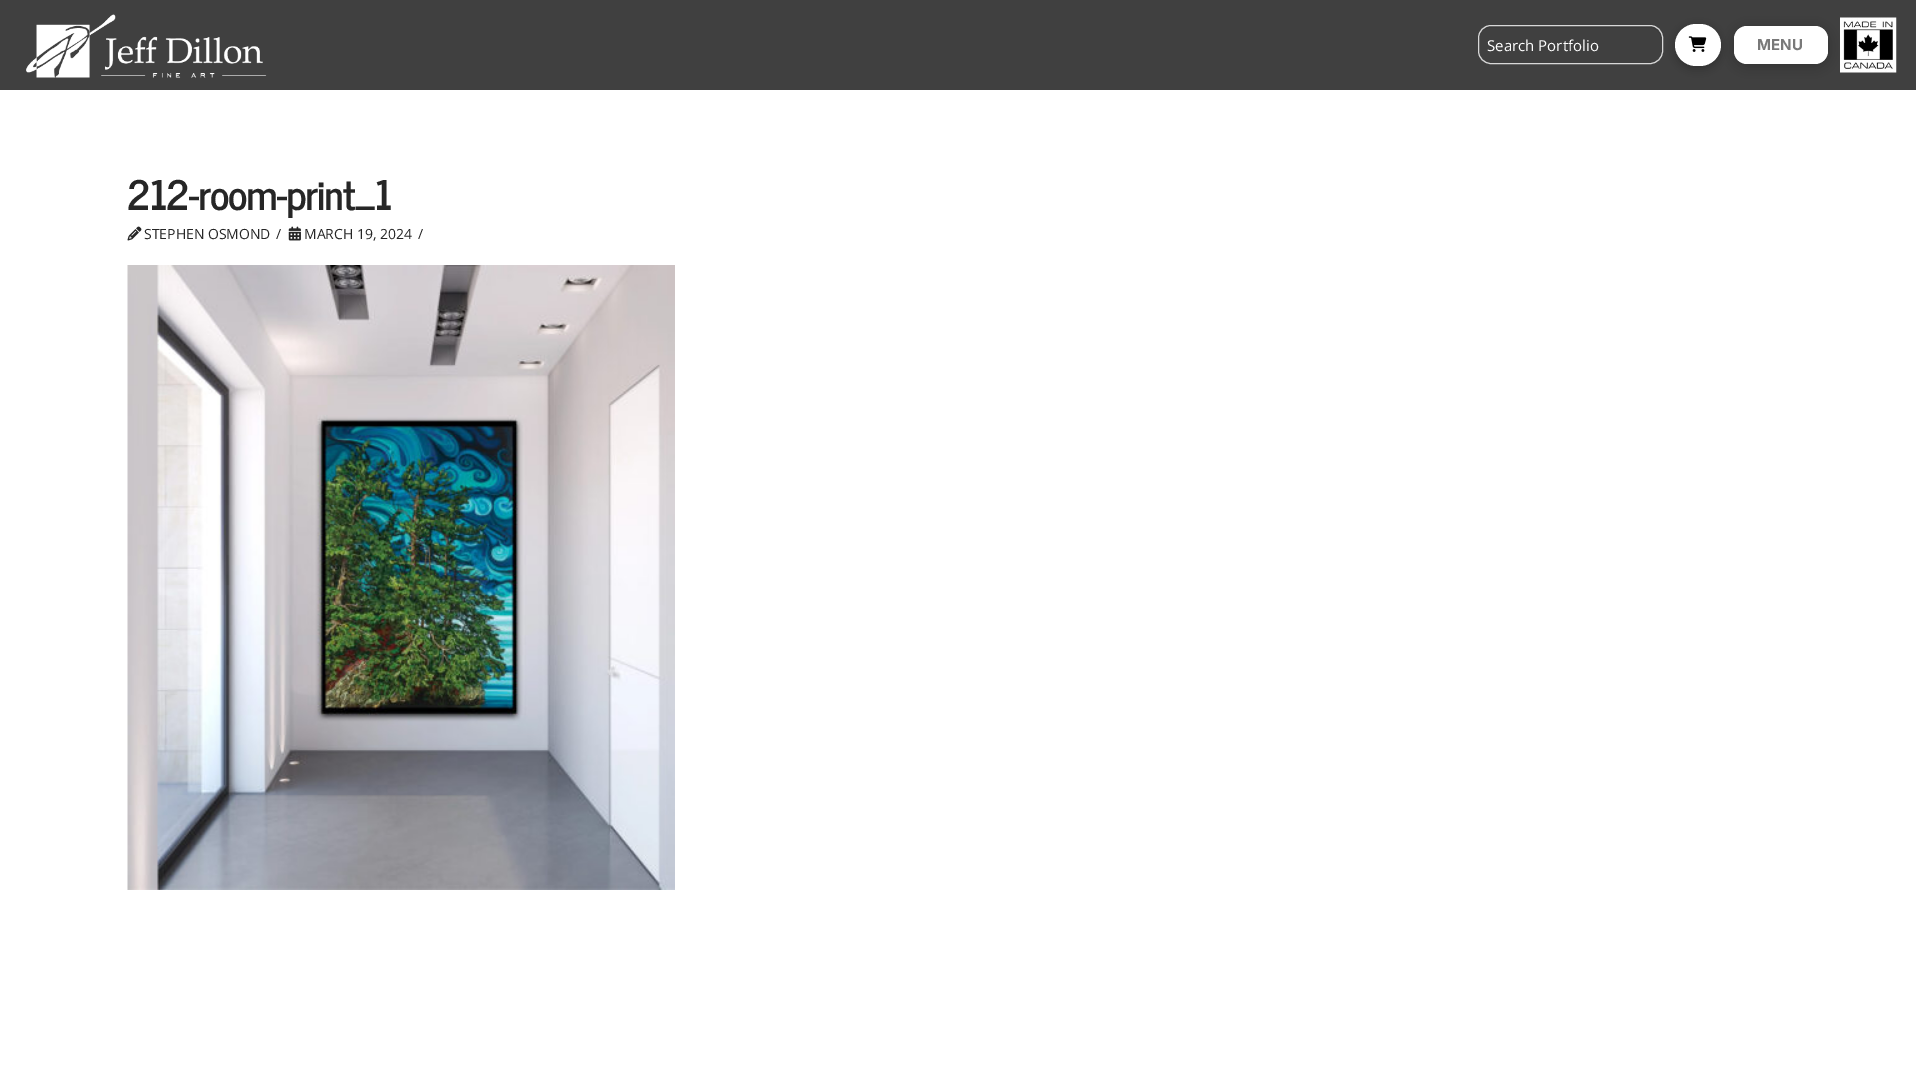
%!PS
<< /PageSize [1916 1090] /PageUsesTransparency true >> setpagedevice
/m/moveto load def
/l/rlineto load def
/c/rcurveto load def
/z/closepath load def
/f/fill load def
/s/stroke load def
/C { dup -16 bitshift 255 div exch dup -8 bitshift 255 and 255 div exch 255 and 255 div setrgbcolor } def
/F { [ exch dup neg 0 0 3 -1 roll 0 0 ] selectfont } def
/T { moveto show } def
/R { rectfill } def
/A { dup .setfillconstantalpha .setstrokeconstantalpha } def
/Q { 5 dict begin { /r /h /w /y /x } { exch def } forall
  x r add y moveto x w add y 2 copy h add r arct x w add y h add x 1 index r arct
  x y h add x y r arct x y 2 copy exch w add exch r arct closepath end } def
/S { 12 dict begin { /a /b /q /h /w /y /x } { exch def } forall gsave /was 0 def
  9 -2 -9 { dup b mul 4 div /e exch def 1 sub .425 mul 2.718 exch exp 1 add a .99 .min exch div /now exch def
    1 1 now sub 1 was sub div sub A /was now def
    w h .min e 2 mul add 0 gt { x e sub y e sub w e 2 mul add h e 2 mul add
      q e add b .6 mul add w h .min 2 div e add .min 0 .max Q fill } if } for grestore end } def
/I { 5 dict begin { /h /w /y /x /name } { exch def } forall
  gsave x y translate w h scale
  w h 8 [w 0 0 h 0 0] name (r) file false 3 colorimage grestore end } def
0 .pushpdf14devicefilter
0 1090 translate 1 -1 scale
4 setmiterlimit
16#FFFFFF C
0 0 1916 1090 R
16#404040 C
0 0 1916 90 R
(1.rgb) 26 14 241 64 I
16#3B3B3B C
1490 28 m -6 0 -11 5 -11 11 c 0 -2 l 0 -6 5 -11 11 -11 c 160 0 l 6 0 11 5 11 11 c 0 2 l 0 -6 -5 -11 -11 -11 c z f
16#000000 C
1675 26 46 43 21.5 4 .25 S
16#D8D8D8 C
1478.5 25.5 184 38 12.5 Q s
/OpenSans-Regular 15 F
16#FFFFFF C
(Search Portfolio) 1487 51 T
1675 24 46 42 21 Q f
(2.rgb) 1688 36 19 16 I
(3.rgb) 1840 17 57 56 I
16#000000 C
1734 29 94 37 13 6 .25 S
16#FFFFFF C
1734 26 94 38 13 Q f
/Inter-Bold 15 F
16#797979 C
(MENU) 1757 50 T
/NewsCycle-Bold 40.5 F
16#262626 C
127 210 m -1.1 0 (212-room-print_1) ashow
(4.rgb) 127 226 15 15 I
/OpenSans-Regular 14 F
(STEPHEN OSMOND) 144 239 T
(/) 276 239 T
(5.rgb) 288 226 13 15 I
(MARCH 19, 2024) 304 239 T
(/) 418 239 T
(6.rgb) 127 265 548 625 I
.poppdf14devicefilter showpage
